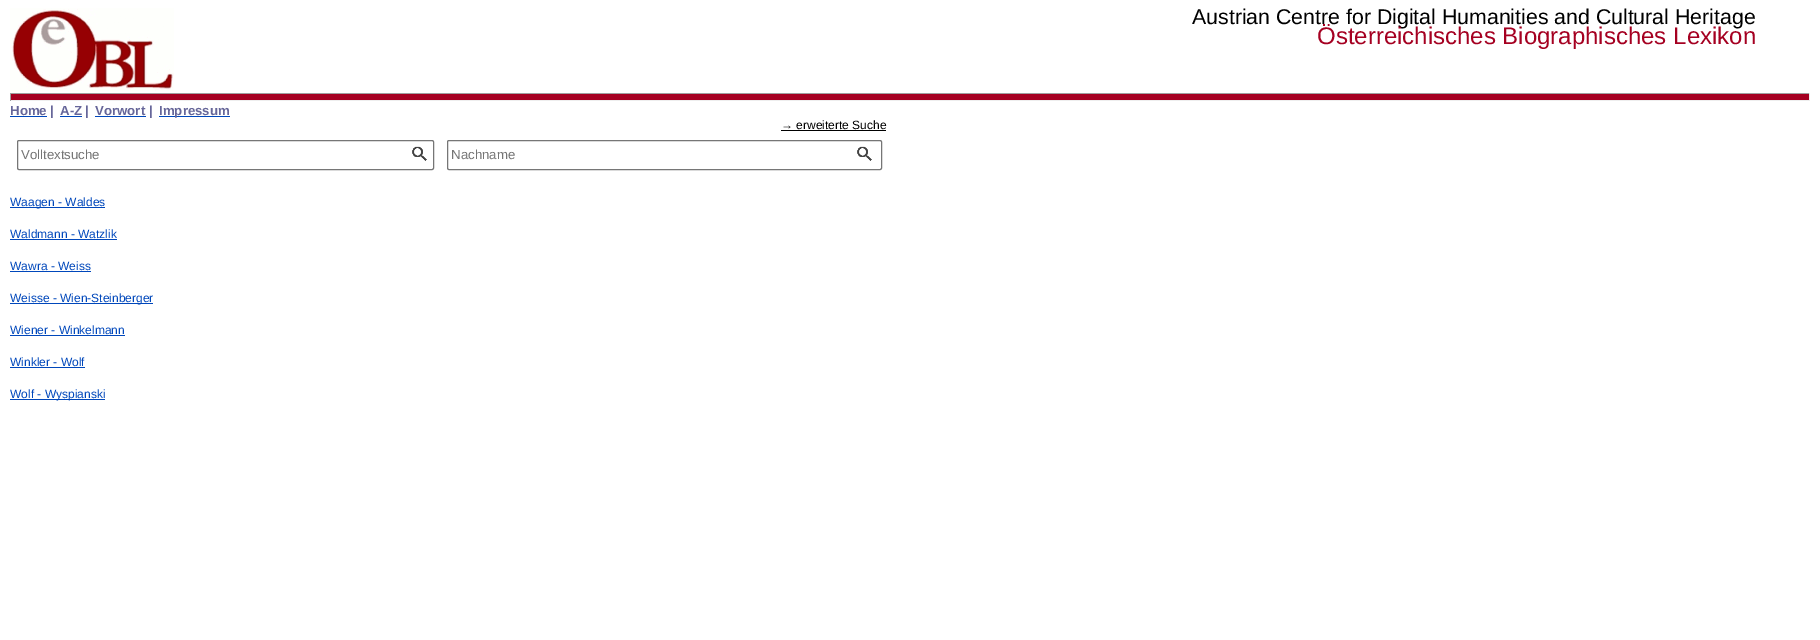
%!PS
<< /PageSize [1820 640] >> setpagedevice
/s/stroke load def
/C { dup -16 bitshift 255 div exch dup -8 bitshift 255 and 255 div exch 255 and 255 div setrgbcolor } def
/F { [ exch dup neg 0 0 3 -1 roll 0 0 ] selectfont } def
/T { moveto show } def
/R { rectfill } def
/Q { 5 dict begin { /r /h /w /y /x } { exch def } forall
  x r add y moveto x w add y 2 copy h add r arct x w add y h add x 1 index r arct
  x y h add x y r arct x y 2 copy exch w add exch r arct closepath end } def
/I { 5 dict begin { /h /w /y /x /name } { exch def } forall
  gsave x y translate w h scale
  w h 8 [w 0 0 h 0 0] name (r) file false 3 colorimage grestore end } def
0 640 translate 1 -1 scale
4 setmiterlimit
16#FFFFFF C
0 0 1820 640 R
(1.rgb) 10 8 164 83 I
/LiberationSans-Regular 21.3 F
16#000000 C
(Austrian Centre for Digital Humanities and Cultural Heritage) 1192 24 T
/LiberationSans-Regular 24 F
16#A50021 C
(Österreichisches Biographisches Lexikon) 1317 44 T
10 94 1800 6 R
16#9F9F9F C
10 93 1800 1 R
16#EEEEEE C
1809 93 1 8 R
10 100 1800 1 R
16#9F9F9F C
10 93 1 8 R
/LiberationSans-Bold 13.25 F
16#666699 C
(Home) 10 115 T
16#0047BB C
10 116 37 1 R
16#666699 C
(|) 50 115 T
(A-Z) 60 115 T
16#0047BB C
60 116 22 1 R
16#666699 C
(|) 85 115 T
(Vorwort) 95 115 T
16#0047BB C
95 116 51 1 R
16#666699 C
(|) 149 115 T
16#0047BB C
159 116 71 1 R
16#666699 C
(Impressum) 159 115 T
/LiberationSans-Regular 12 F
16#000000 C
(→ erweiterte Suche) 781 129 T
781 130 105 1 R
16#767676 C
17.5 140.5 416 29 1.5 Q s
/LiberationSans-Regular 13.25 F
16#757575 C
(Volltextsuche) 21 159 T
(2.rgb) 412 146 15 15 I
16#767676 C
447.5 140.5 434 29 1.5 Q s
16#757575 C
(Nachname) 451 159 T
(3.rgb) 857 146 15 15 I
16#0047BB C
10 207 95 1 R
/LiberationSans-Regular 12 F
(Waagen - Waldes) 10 206 T
(Waldmann - Watzlik) 10 238 T
10 239 107 1 R
(Wawra - Weiss) 10 270 T
10 271 81 1 R
10 303 143 1 R
(Weisse - Wien-Steinberger) 10 302 T
(Wiener - Winkelmann) 10 334 T
10 335 115 1 R
(Winkler - Wolf) 10 366 T
10 367 75 1 R
10 399 95 1 R
(Wolf - Wyspianski) 10 398 T
showpage
